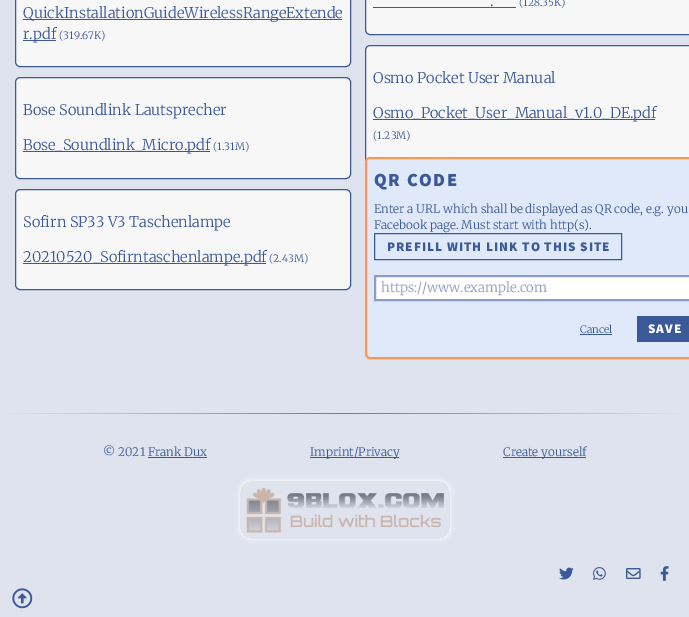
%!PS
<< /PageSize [689 617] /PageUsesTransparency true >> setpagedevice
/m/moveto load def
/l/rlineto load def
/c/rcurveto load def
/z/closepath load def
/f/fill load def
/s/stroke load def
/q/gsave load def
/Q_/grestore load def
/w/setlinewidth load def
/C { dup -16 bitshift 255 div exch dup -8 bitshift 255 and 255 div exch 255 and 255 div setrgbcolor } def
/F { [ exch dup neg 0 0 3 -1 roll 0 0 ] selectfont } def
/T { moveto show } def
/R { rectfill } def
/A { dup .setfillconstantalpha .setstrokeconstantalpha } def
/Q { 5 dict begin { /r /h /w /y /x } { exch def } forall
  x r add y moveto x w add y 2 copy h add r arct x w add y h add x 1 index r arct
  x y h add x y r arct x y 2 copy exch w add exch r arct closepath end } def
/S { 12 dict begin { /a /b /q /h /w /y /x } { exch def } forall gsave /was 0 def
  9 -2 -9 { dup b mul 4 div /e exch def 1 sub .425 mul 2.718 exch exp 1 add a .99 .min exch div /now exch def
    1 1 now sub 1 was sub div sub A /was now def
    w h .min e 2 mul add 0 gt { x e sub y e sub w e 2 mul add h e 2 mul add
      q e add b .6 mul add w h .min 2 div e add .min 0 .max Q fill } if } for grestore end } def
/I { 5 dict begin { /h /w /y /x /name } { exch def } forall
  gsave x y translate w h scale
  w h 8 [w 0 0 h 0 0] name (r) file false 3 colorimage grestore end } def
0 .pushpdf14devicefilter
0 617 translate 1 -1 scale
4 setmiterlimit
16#DFE3EE C
0 0 689 617 R
16#F7F7F7 C
365.5 -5.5 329 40 4.5 Q q f Q_
16#3B5998 C
s
/Merriweather-Light 14.7 F
(.) 490 6 T
373 7 143 1 R
/Merriweather-Light 10.25 F
(\(128.35K\)) 519 6 T
16#F7F7F7 C
15.5 -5.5 335 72 4.5 Q q f Q_
16#3B5998 C
s
23 19 319 1 R
/Merriweather-Light 14.7 F
(QuickInstallationGuideWirelessRangeExtende) 23 18 T
23 40 33 1 R
(r.pdf) 23 39 T
/Merriweather-Light 10.25 F
(\(319.67K\)) 59 39 T
16#F7F7F7 C
15.5 77.5 335 101 4.5 Q q f Q_
16#3B5998 C
s
/Merriweather-Light 14.7 F
(Bose Soundlink Lautsprecher) 23 115 T
23 151 187 1 R
(Bose_Soundlink_Micro.pdf) 23 150 T
/Merriweather-Light 10.25 F
(\(1.31M\)) 213 150 T
16#F7F7F7 C
365.5 45.5 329 121 4.5 Q q f Q_
16#3B5998 C
s
/Merriweather-Light 14.7 F
(Osmo Pocket User Manual) 373 83 T
373 119 282 1 R
(Osmo_Pocket_User_Manual_v1.0_DE.pdf) 373 118 T
/Merriweather-Light 10.25 F
(\(1.23M\)) 373 139 T
16#F7F7F7 C
15.5 189.5 335 100 4.5 Q q f Q_
16#3B5998 C
s
/Merriweather-Light 14.7 F
(Sofirn SP33 V3 Taschenlampe) 23 227 T
23 263 243 1 R
(20210520_Sofirntaschenlampe.pdf) 23 262 T
/Merriweather-Light 10.25 F
(\(2.43M\)) 269 262 T
16#E0E9F9 C
366 158 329 200 4 Q q f Q_
16#FF9554 C
2 w
s
/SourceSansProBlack-Black 18.5 F
16#3B5998 C
374 186 m 1.5 0 (QR CODE) ashow
/Merriweather-Light 11.75 F
(Enter a URL which shall be displayed as QR code, e.g. you) 374 213 T
(Facebook page. Must start with http\(s\).) 374 229 T
1 w
374.5 233.5 247 26 rectstroke
/SourceSansProBlack-Black 13.25 F
387 251 m 1 0 (PREFILL WITH LINK TO THIS SITE) ashow
16#FFFFFF C
375 276 m 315 0 l 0 24 l -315 0 l z q f Q_
16#8B9DC3 C
2 w
s
/Merriweather-Light 13.25 F
(https://www.example.com) 381 292 T
/Merriweather-Light 10.25 F
16#3B5998 C
(Cancel) 580 333 T
580 334 32 1 R
637 316 52 26 R
/SourceSansProBlack-Black 13.25 F
16#FFFFFF C
648 333 m 1 0 (SAVE) ashow
q 0 413 m 689 0 l 0 1 l -689 0 l z clip newpath
<< /ShadingType 2 /ColorSpace /DeviceRGB /Coords [0 414 689 414] /Extend [true true] /Function << /FunctionType 3 /Domain [0 1] /Functions [<< /FunctionType 2 /Domain [0 1] /C0 [.875 .89 .933] /C1 [.392 .486 .682] /N 1 >> << /FunctionType 2 /Domain [0 1] /C0 [.392 .486 .682] /C1 [.875 .89 .933] /N 1 >>] /Bounds [.5] /Encode [0 1 0 1] >> >> shfill Q_
/Merriweather-Light 11.75 F
16#3B5998 C
(© 2021 Frank Dux) 103 456 T
148 457 59 1 R
310 457 89 1 R
(Imprint/Privacy) 310 456 T
503 457 83 1 R
(Create yourself) 503 456 T
q
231 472 m 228 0 l 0 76 l -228 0 l z 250 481 m 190 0 l 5.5 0 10 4.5 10 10 c 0 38 l 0 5.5 -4.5 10 -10 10 c -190 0 l -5.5 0 -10 -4.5 -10 -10 c 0 -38 l 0 -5.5 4.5 -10 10 -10 c z eoclip newpath
16#FFFFFF C
240 481 210 58 10 2.5 1 S
Q_
(1.rgb) 246 487 198 46 I
(2.rgb) 559 567 15 13 I
(3.rgb) 593 567 13 13 I
(4.rgb) 626 568 15 11 I
(5.rgb) 660 566 9 15 I
(6.rgb) 12 588 21 21 I
.poppdf14devicefilter showpage
